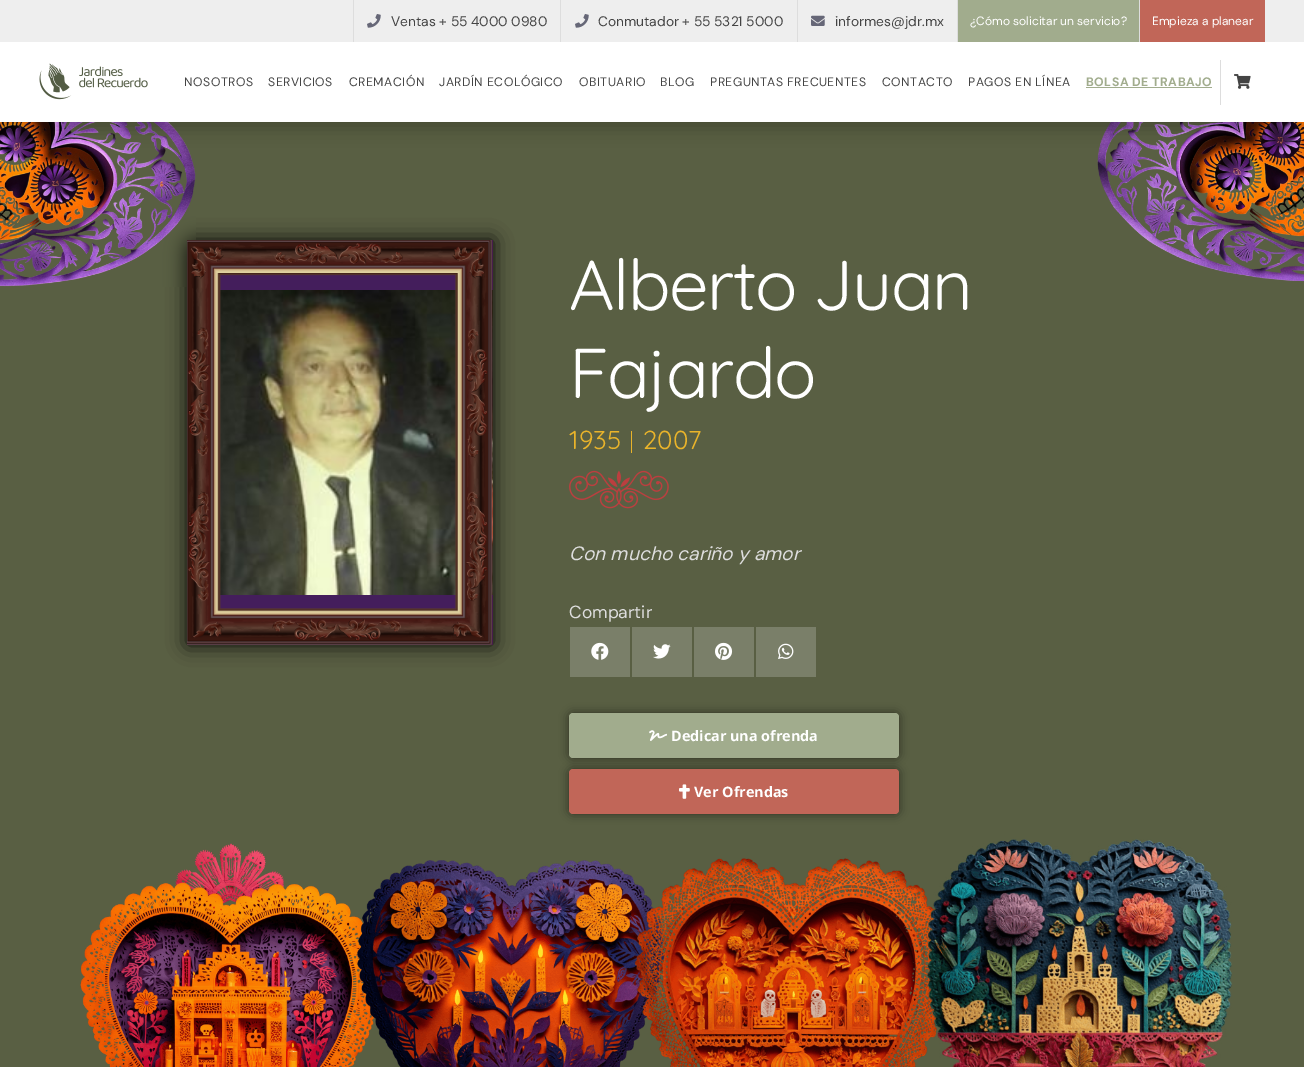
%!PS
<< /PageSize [1304 1067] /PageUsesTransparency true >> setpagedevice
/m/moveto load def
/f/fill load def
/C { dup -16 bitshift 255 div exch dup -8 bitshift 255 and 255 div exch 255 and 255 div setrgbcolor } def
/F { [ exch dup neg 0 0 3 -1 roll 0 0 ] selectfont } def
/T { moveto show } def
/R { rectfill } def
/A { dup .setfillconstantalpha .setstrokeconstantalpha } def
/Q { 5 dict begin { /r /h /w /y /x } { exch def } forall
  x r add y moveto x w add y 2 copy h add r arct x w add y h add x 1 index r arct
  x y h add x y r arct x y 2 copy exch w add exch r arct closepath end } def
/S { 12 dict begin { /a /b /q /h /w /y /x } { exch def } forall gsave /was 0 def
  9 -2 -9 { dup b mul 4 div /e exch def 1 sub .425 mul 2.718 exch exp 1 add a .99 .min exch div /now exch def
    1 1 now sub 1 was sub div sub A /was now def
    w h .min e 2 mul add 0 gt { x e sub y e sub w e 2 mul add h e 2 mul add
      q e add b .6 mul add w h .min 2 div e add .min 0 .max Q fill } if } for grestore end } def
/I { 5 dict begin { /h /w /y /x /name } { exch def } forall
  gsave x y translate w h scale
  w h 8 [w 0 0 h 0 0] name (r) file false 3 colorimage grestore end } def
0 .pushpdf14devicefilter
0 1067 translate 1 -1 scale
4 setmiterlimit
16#595F43 C
0 0 1304 1067 R
16#000000 C
187 240 306 405 0 10 .9 S
16#441E5C C
187 240 306 405 R
(8.rgb) 220 290 273 305 I
(7.rgb) 187 240 306 405 I
(5.rgb) 0 122 196 165 I
(6.rgb) 1097 122 207 160 I
16#000000 C
0 7 1304 122 0 8.5 .2 S
16#FFFFFF C
0 42 1304 80 R
16#EEEEEE C
0 0 1304 42 R
16#DDDDDD C
353 0 1 42 R
(1.rgb) 367 14 14 14 I
/DMSans-Regular 13.75 F
16#444444 C
(Ventas + 55 4000 0980) 391 26 T
16#DDDDDD C
560 0 1 42 R
(1.rgb) 575 14 14 14 I
16#444444 C
(Conmutador + 55 5321 5000) 598 26 T
16#DDDDDD C
797 0 1 42 R
(2.rgb) 811 15 14 11 I
16#444444 C
(informes@jdr.mx) 835 26 T
16#A1AC8D C
958 0 181 42 R
16#DDDDDD C
957 0 1 42 R
/DMSans-Regular 12 F
16#FFFFFF C
(¿Cómo solicitar un servicio?) 970 25 T
16#C16658 C
1140 0 125 42 R
16#DDDDDD C
1139 0 1 42 R
16#FFFFFF C
(Empieza a planear) 1152 25 T
(3.rgb) 39 63 109 37 I
/DMSans-Regular 12.25 F
16#444444 C
184 86 m .5 0 (NOSOTROS) ashow
268 86 m .5 0 (SERVICIOS) ashow
349 86 m .5 0 (CREMACIÓN) ashow
439 86 m .5 0 (JARDÍN ECOLÓGICO) ashow
579 86 m .5 0 (OBITUARIO) ashow
660 86 m .5 0 (BLOG) ashow
710 86 m .5 0 (PREGUNTAS FRECUENTES) ashow
882 86 m .5 0 (CONTACTO) ashow
968 86 m .5 0 (PAGOS EN LÍNEA) ashow
/DMSans-Bold 12.25 F
16#A1AC8D C
1086 86 m .5 0 (BOLSA DE TRABAJO) ashow
1086 87 126 1 R
16#DDDDDD C
1220 60 1 45 R
(4.rgb) 1234 74 17 15 I
/Quicksand-Regular 70.5 F
16#FFFFFF C
569 310 m -1.6 0 (Alberto Juan) ashow
569 398 m -1.6 0 (Fajardo) ashow
/Quicksand-Regular 26 F
16#EAB42A C
(1935) 569 449 T
16#E8B32B C
631 431 1 22 R
16#EAB42A C
(2007) 643 449 T
(9.rgb) 569 470 100 39 I
/DMSans-Italic 19.25 F
16#DDDDDD C
(Con mucho cariño y amor) 569 560 T
/DMSans-Regular 17.5 F
(Compartir) 569 618 T
16#7A7F69 C
570 627 60 50 R
(10.rgb) 591 642 18 18 I
632 627 60 50 R
(11.rgb) 653 644 18 15 I
694 627 60 50 R
(12.rgb) 715 642 18 18 I
756 627 60 50 R
(13.rgb) 778 643 16 16 I
16#000000 C
569 713 330 45 4 5 .5 S
16#A1AC8D C
569 713 330 45 4 Q f
(14.rgb) 649 730 18 11 I
/OpenSans-Bold 14.4 F
16#FFFFFF C
(Dedicar una ofrenda) 671 741 T
16#000000 C
569 769 330 45 4 5 .5 S
16#C16658 C
569 769 330 45 4 Q f
(15.rgb) 679 784 11 15 I
16#FFFFFF C
(Ver Ofrendas) 694 797 T
(16.rgb) 80 843 295 224 I
(17.rgb) 357 860 308 207 I
(18.rgb) 634 858 317 209 I
(19.rgb) 927 839 305 228 I
.poppdf14devicefilter showpage
